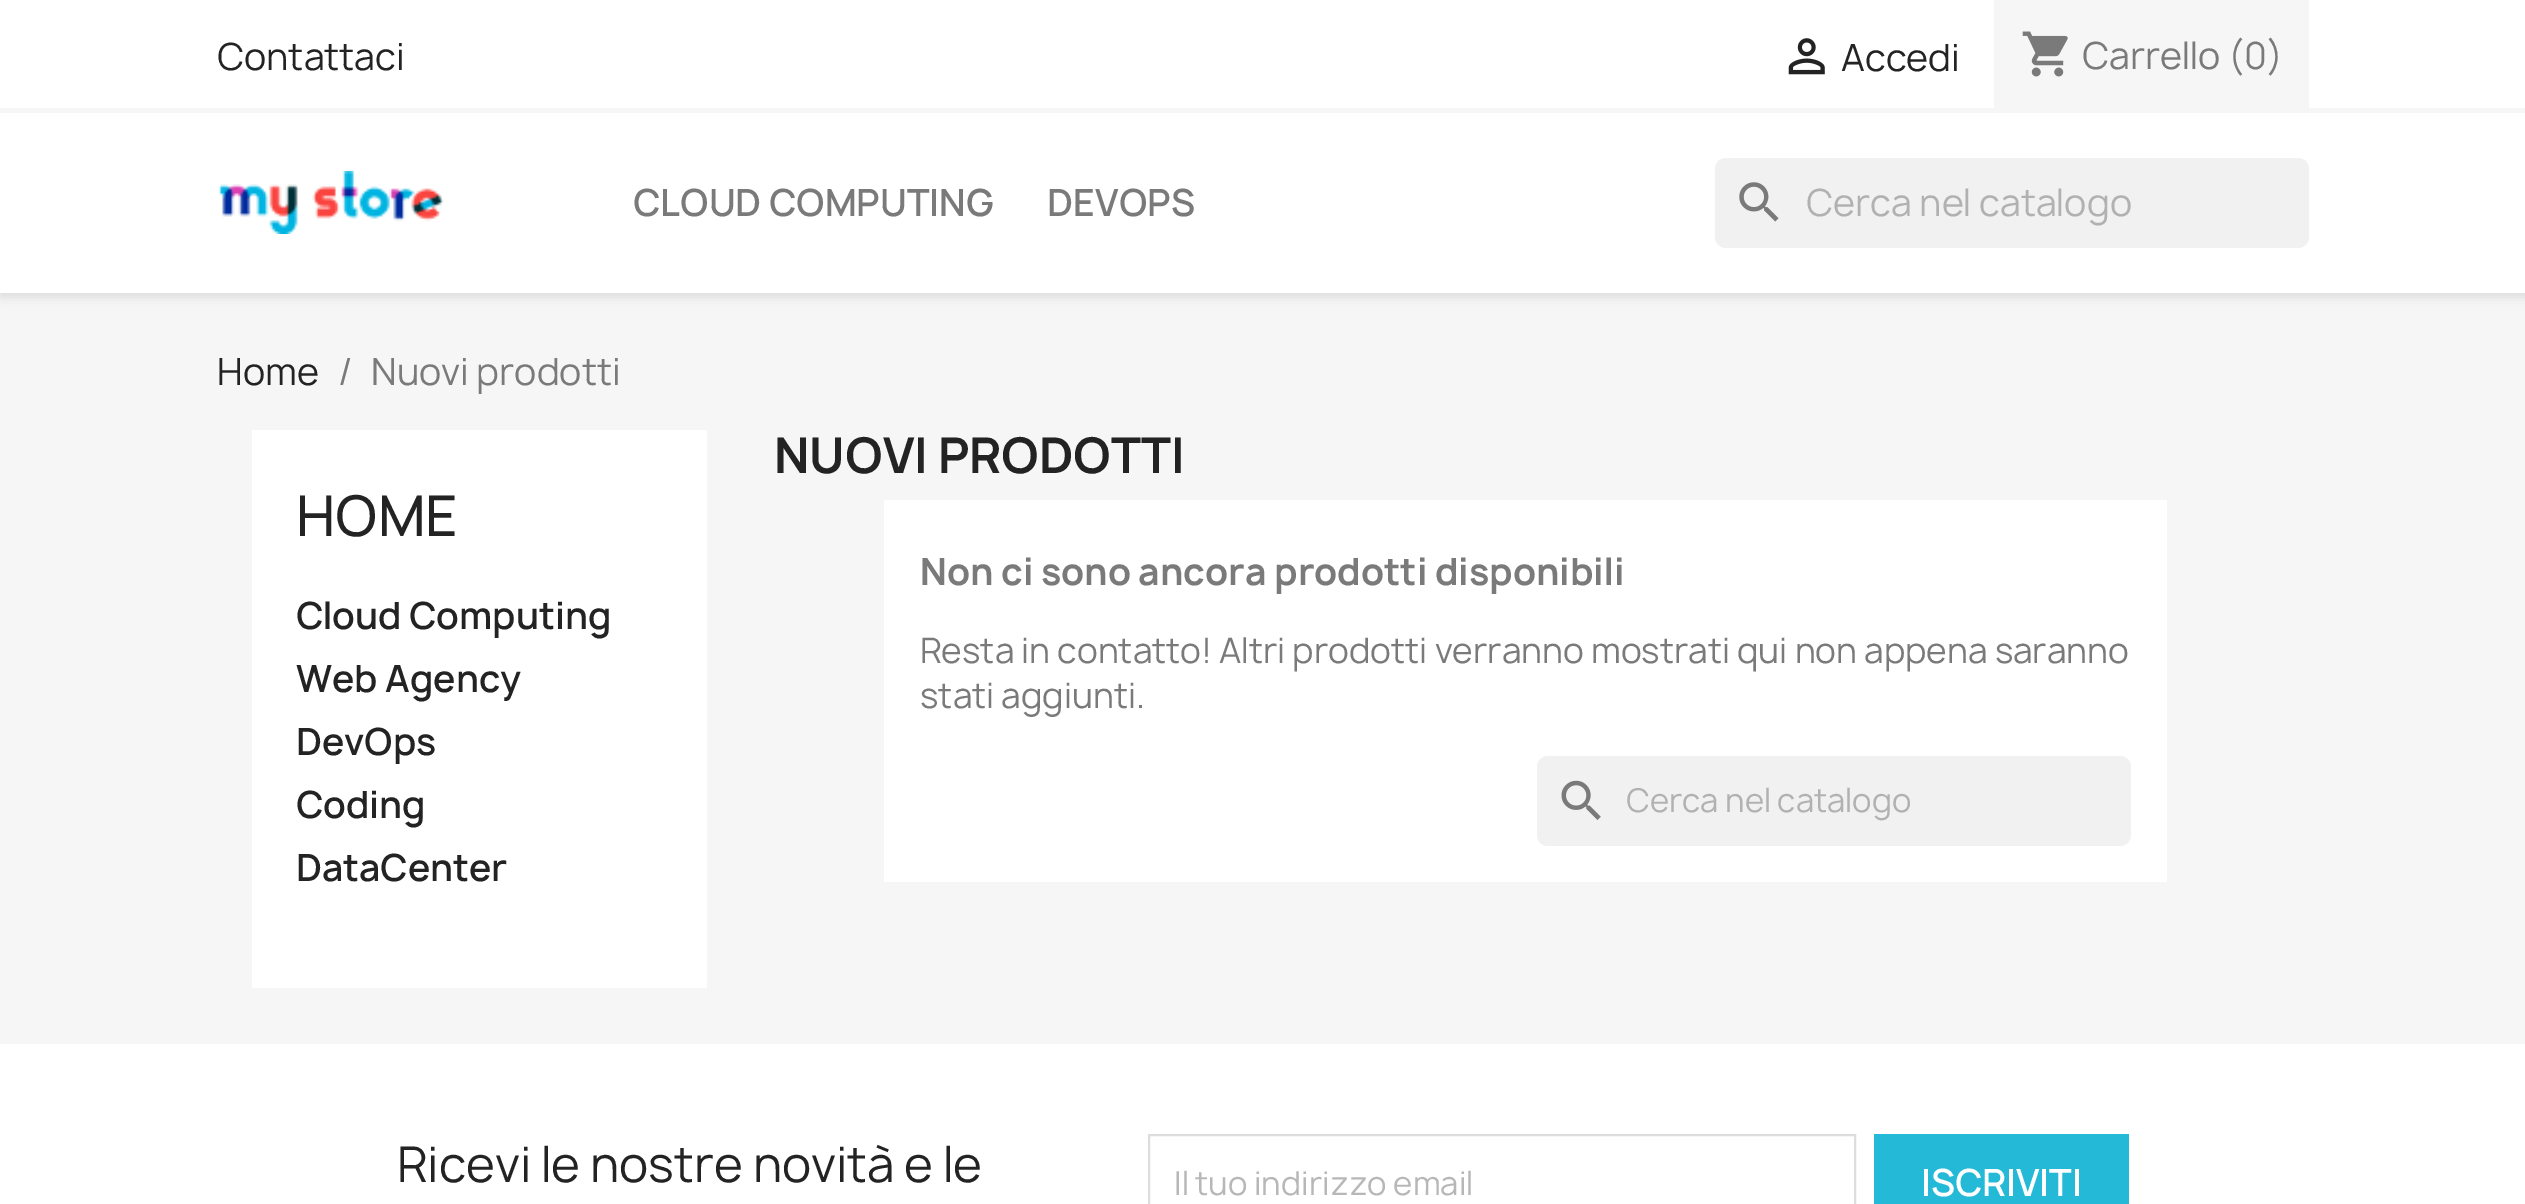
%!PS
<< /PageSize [2525 1204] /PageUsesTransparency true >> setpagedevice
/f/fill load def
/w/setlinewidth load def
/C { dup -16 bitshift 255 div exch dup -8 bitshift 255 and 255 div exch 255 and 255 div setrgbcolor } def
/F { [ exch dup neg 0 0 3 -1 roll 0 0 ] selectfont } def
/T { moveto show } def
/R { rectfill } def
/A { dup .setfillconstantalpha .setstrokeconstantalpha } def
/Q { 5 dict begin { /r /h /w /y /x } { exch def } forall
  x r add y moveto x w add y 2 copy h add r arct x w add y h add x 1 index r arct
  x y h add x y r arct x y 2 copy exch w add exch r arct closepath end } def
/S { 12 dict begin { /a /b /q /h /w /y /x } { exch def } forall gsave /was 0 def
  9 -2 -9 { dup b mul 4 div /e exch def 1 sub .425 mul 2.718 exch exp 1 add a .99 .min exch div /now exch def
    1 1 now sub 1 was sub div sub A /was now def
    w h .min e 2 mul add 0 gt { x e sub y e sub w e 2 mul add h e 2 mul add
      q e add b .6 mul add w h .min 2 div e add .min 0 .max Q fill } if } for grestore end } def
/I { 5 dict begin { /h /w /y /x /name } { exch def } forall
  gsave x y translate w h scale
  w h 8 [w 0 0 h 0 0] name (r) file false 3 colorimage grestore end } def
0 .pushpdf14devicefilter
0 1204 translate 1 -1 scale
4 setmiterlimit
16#FFFFFF C
0 0 2525 1204 R
16#F6F6F6 C
0 293 2525 751 R
16#000000 C
0 5 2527 292 0 5.5 .11 S
16#FFFFFF C
0 0 2525 293 R
16#F6F6F6 C
0 108 2525 5 R
/Manrope-Regular 36 F
16#232323 C
(Contattaci) 217 70 T
(1.rgb) 1788 38 37 37 I
(Accedi) 1841 71 T
16#F6F6F6 C
1994 0 315 108 R
(2.rgb) 2022 31 46 46 I
16#7A7A7A C
(Carrello \(0\)) 2082 69 T
(3.rgb) 218 171 226 63 I
/Manrope-SemiBold 36 F
(CLOUD COMPUTING) 633 216 T
(DEVOPS) 1047 216 T
16#F1F1F1 C
1715 158 594 90 11 Q f
(4.rgb) 1739 182 40 40 I
/Manrope-Regular 36 F
16#B1B1B1 C
(Cerca nel catalogo) 1806 216 T
16#232323 C
(Home) 217 385 T
16#7A7A7A C
(/) 338 385 T
(Nuovi prodotti) 371 385 T
16#FFFFFF C
252 430 455 558 R
/Manrope-Medium 54 F
16#232323 C
(HOME) 296 536 T
/Manrope-SemiBold 36 F
(Cloud Computing) 296 629 T
(Web Agency) 296 692 T
(DevOps) 296 755 T
(Coding) 296 818 T
(DataCenter) 296 881 T
/Manrope-Bold 47.25 F
(NUOVI PRODOTTI) 774 473 T
16#FFFFFF C
884 500 1283 382 R
/Manrope-Bold 36 F
16#7A7A7A C
(Non ci sono ancora prodotti disponibili) 920 585 T
/Manrope-Regular 33.75 F
(Resta in contatto! Altri prodotti verranno mostrati qui non appena saranno) 920 663 T
(stati aggiunti.) 920 708 T
16#F1F1F1 C
1537 756 594 90 11 Q f
(5.rgb) 1561 780 40 40 I
/Manrope-Regular 31.5 F
16#B1B1B1 C
(Cerca nel catalogo) 1626 812 T
/Manrope-Regular 47.25 F
16#232323 C
(Ricevi le nostre novità e le) 397 1182 T
16#DDDDDD C
2 w
1149 1135 706 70 rectstroke
/Manrope-Regular 31.5 F
16#B7B7B7 C
(Il tuo indirizzo email) 1174 1195 T
16#24B9D7 C
1874 1134 255 70 R
/Manrope-SemiBold 36 F
16#FFFFFF C
(ISCRIVITI) 1921 1196 T
.poppdf14devicefilter showpage
